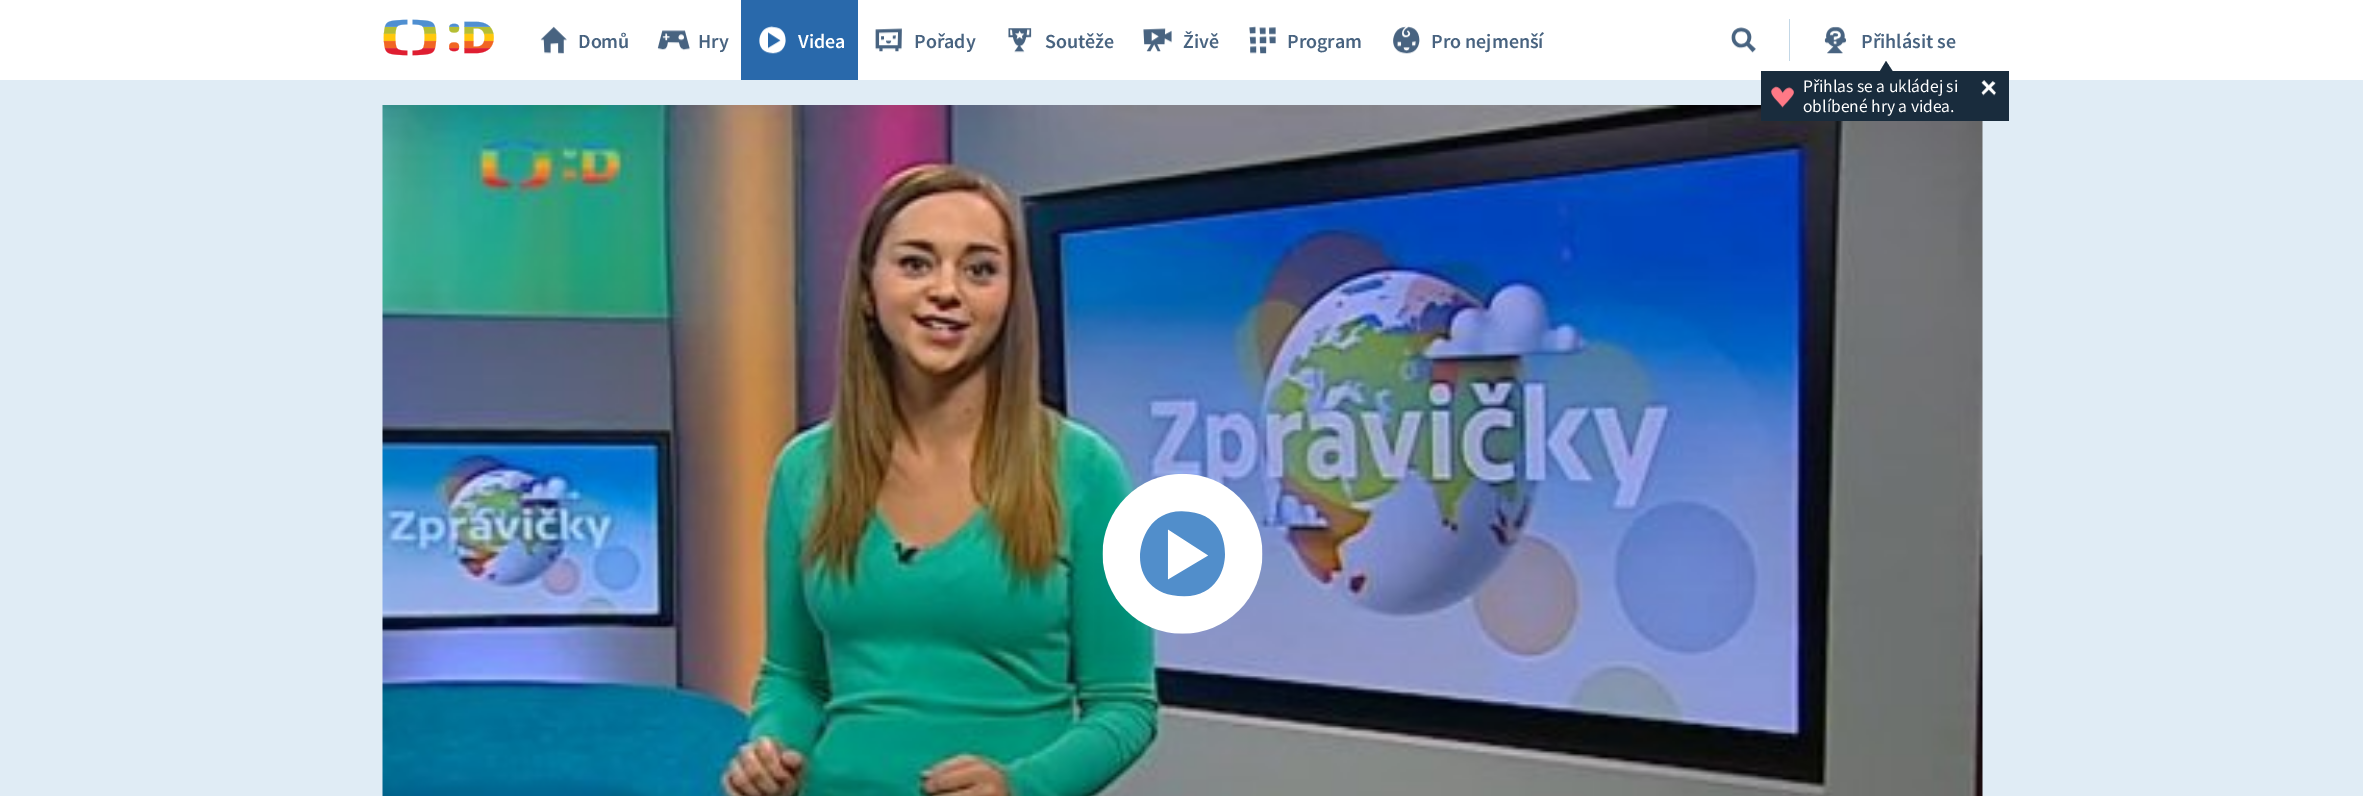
%!PS
<< /PageSize [2363 796] >> setpagedevice
/m/moveto load def
/l/rlineto load def
/z/closepath load def
/f/fill load def
/C { dup -16 bitshift 255 div exch dup -8 bitshift 255 and 255 div exch 255 and 255 div setrgbcolor } def
/F { [ exch dup neg 0 0 3 -1 roll 0 0 ] selectfont } def
/T { moveto show } def
/R { rectfill } def
/I { 5 dict begin { /h /w /y /x /name } { exch def } forall
  gsave x y translate w h scale
  w h 8 [w 0 0 h 0 0] name (r) file false 3 colorimage grestore end } def
0 796 translate 1 -1 scale
4 setmiterlimit
16#E0ECF5 C
0 0 2363 796 R
16#FFFFFF C
0 0 2363 80 R
(1.rgb) 383 19 111 37 I
(2.rgb) 540 26 27 28 I
/SourceSansPro-SemiBold 20 F
16#486380 C
(Domů) 578 48 T
(3.rgb) 657 30 33 21 I
(Hry) 698 48 T
16#2969AB C
741 0 117 80 R
(4.rgb) 759 26 27 28 I
16#FFFFFF C
(Videa) 798 48 T
(5.rgb) 875 28 27 24 I
16#486380 C
(Pořady) 914 48 T
(6.rgb) 1008 28 24 25 I
(Soutěže) 1045 48 T
(7.rgb) 1143 28 29 24 I
(Živě) 1183 48 T
(8.rgb) 1249 26 27 28 I
(Program) 1287 48 T
(9.rgb) 1393 26 27 28 I
(Pro nejmenší) 1431 48 T
(10.rgb) 1731 27 25 26 I
16#C3D7E6 C
1789 19 1 42 R
(11.rgb) 1824 26 23 28 I
16#486380 C
(Přihlásit se) 1861 48 T
(14.rgb) 382 105 1601 691 I
16#192C3D C
1761 71 248 50 R
1892.5 71 m -12.5 0 l 6 -10 l z f
(12.rgb) 1771 86 23 22 I
/SourceSansPro-Regular 17.5 F
16#FFFFFF C
(Přihlas se a ukládej si) 1803 92 T
(oblíbené hry a videa.) 1803 112 T
(13.rgb) 1981 80 15 16 I
(15.rgb) 1102 473 161 161 I
showpage
